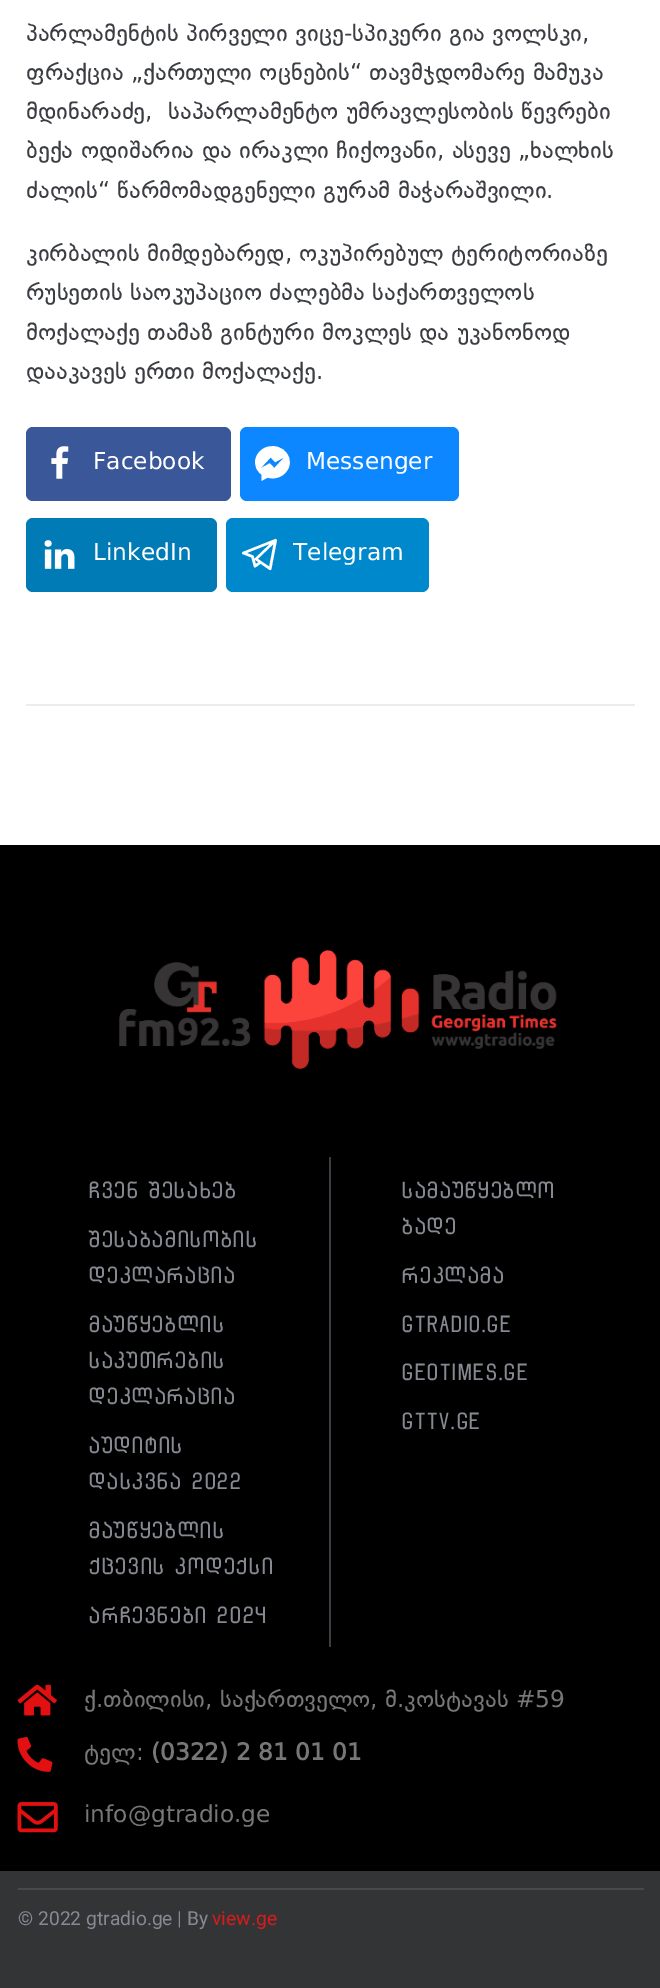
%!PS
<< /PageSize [660 1988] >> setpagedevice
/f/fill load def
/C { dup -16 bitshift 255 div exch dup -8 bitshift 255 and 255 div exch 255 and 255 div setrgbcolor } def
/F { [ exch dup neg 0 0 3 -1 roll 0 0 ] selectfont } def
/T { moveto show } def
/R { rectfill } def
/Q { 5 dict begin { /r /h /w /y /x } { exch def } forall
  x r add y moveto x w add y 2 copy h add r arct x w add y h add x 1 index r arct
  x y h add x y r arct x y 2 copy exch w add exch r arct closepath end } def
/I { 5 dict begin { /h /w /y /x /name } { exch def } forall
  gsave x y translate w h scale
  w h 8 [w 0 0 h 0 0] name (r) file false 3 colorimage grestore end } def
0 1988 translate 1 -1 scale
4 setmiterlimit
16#FFFFFF C
0 0 660 1988 R
16#EBECED C
26 704 609 2 R
/DejaVuSans-Regular 24.5 F
16#3B3D42 C
(პარლამენტის პირველი ვიცე-სპიკერი გია ვოლსკი,) 26 41 T
(ფრაქცია „ქართული ოცნების“ თავმჯდომარე მამუკა) 26 80 T
(მდინარაძე,) 26 119 T
(საპარლამენტო უმრავლესობის წევრები) 168 119 T
(ბექა ოდიშარია და ირაკლი ჩიქოვანი, ასევე „ხალხის) 26 158 T
(ძალის“ წარმომადგენელი გურამ მაჭარაშვილი.) 26 198 T
(კირბალის მიმდებარედ, ოკუპირებულ ტერიტორიაზე) 26 261 T
(რუსეთის საოკუპაციო ძალებმა საქართველოს) 26 300 T
(მოქალაქე თამაზ გინტური მოკლეს და უკანონოდ) 26 340 T
(დააკავეს ერთი მოქალაქე.) 26 379 T
16#3A579A C
26 427 205 74 7 Q f
(1.rgb) 51 446 18 33 I
16#FFFFFF C
(Facebook) 93 469 T
16#0D87FF C
240 427 219 74 7 Q f
/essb-Regular 35 F
16#FFFFFF C
(*) 255 481 T
/DejaVuSans-Regular 24.5 F
(Messenger) 306 469 T
16#007BB6 C
26 518 191 74 7 Q f
(2.rgb) 44 540 31 29 I
16#FFFFFF C
(LinkedIn) 93 560 T
16#0088CC C
226 518 203 74 7 Q f
/essb-Regular 35 F
16#FFFFFF C
(") 242 572 T
/DejaVuSans-Regular 24.5 F
(Telegram) 293 560 T
16#000000 C
0 845 660 1026 R
(3.rgb) 119 950 438 119 I
16#3B3D42 C
329 1157 2 490 R
/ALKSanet-Regular 22.75 F
16#868991 C
(ჩვენ შესახებ) 88 1198 T
(შესაბამისობის) 88 1247 T
(დეკლარაცია) 88 1283 T
(მაუწყებლის) 88 1332 T
(საკუთრების) 88 1368 T
(დეკლარაცია) 88 1404 T
(აუდიტის) 88 1453 T
(დასკვნა 2022) 88 1489 T
(მაუწყებლის) 88 1538 T
(ქცევის კოდექსი) 88 1574 T
(არჩევნები 2024) 88 1623 T
(სამაუწყებლო) 401 1198 T
(ბადე) 401 1234 T
(რეკლამა) 401 1283 T
(gtradio.ge) 401 1332 T
(geotimes.ge) 401 1380 T
(gttv.ge) 401 1429 T
(4.rgb) 17 1684 40 32 I
/DejaVuSans-Regular 24.5 F
16#777777 C
(ქ.თბილისი, საქართველო, მ.კოსტავას #59) 84 1707 T
(5.rgb) 17 1736 36 36 I
(ტელ:) 84 1760 T
/DejaVuSans-Bold 24.5 F
(\(0322\) 2 81 01 01) 151 1760 T
(6.rgb) 17 1802 41 31 I
/DejaVuSans-Regular 24.5 F
(info@gtradio.ge) 84 1822 T
16#333436 C
0 1871 660 117 R
16#48494A C
18 1888 626 2 R
/Roboto-Regular 19.25 F
16#868991 C
(© 2022 gtradio.ge | By) 18 1925 T
16#D81C1C C
(view.ge) 212 1925 T
showpage
